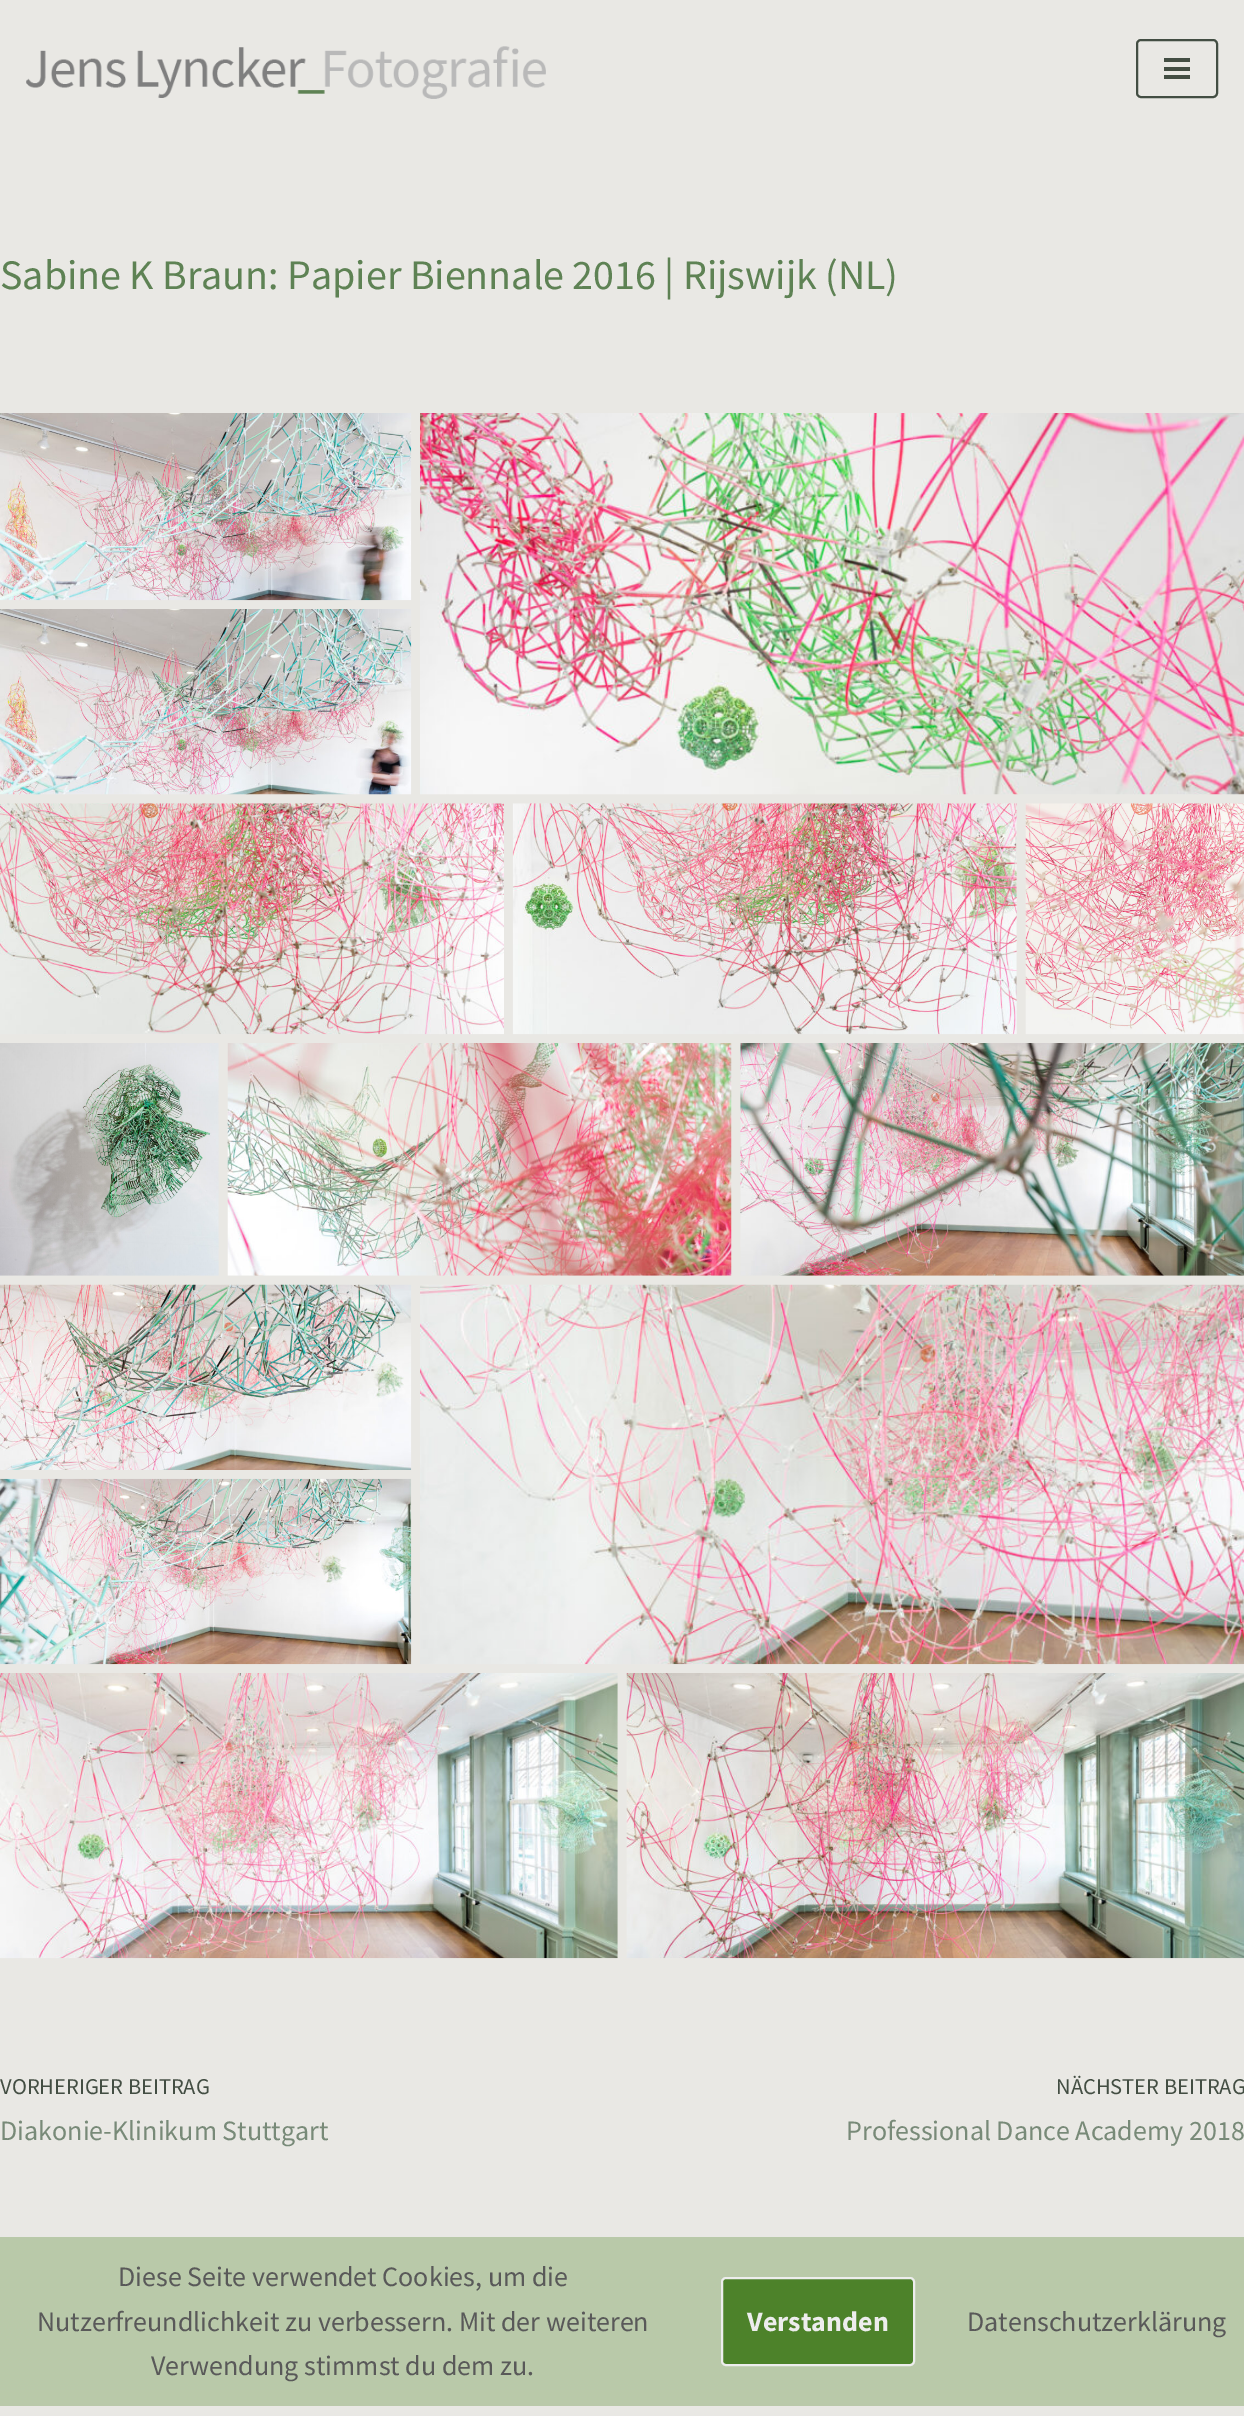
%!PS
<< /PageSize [1244 2416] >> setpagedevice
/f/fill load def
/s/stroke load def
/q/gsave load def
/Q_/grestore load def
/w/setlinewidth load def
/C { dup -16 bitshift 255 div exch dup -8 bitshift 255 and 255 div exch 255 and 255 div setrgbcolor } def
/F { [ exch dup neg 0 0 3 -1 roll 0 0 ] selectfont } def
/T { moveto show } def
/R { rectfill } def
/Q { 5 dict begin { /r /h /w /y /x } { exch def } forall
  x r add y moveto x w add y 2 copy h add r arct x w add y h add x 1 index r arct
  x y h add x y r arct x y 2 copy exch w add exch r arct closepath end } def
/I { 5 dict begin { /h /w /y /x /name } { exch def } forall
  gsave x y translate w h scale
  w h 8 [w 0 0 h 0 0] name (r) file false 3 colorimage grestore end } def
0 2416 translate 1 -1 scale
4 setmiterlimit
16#E9E8E4 C
0 0 1244 2416 R
(1.rgb) 26 46 520 53 I
16#434E43 C
2 w
1137 40 80 57 4 Q s
1164 58 26 4 R
1164 67 26 4 R
1164 75 26 4 R
/SourceSansPro-Regular 42 F
16#5E8254 C
(Sabine K Braun: Papier Biennale 2016 | Rijswijk \(NL\)) 0 289 T
(2.rgb) 0 413 412 188 I
(3.rgb) 420 413 824 382 I
(4.rgb) 0 609 412 186 I
(5.rgb) 0 803 504 232 I
(6.rgb) 512 803 505 232 I
(7.rgb) 1025 803 219 232 I
(8.rgb) 0 1043 219 233 I
(9.rgb) 227 1043 505 233 I
(10.rgb) 740 1043 504 233 I
(11.rgb) 0 1284 412 186 I
(12.rgb) 420 1284 824 381 I
(13.rgb) 0 1478 412 187 I
(14.rgb) 0 1673 618 286 I
(15.rgb) 626 1673 618 286 I
/SourceSansPro-Regular 22.5 F
16#434E43 C
(VORHERIGER BEITRAG) 0 2094 T
/SourceSansPro-Regular 28 F
16#788A78 C
(Diakonie-Klinikum Stuttgart) 0 2140 T
/SourceSansPro-Regular 22.5 F
16#434E43 C
(NÄCHSTER BEITRAG) 1056 2094 T
/SourceSansPro-Regular 28 F
16#788A78 C
(Professional Dance Academy 2018) 846 2140 T
16#B9C9A9 C
0 2237 1244 169 R
16#595959 C
(Diese Seite verwendet Cookies, um die) 118 2286 T
(Nutzerfreundlichkeit zu verbessern. Mit der weiteren) 37 2331 T
(Verwendung stimmst du dem zu.) 151 2375 T
16#4D822A C
722 2278 192 87 4 Q q f Q_
16#EDEDED C
s
/SourceSansPro-Bold 28 F
(Verstanden) 747 2331 T
/SourceSansPro-Regular 28 F
16#595959 C
(Datenschutzerklärung) 967 2331 T
showpage
